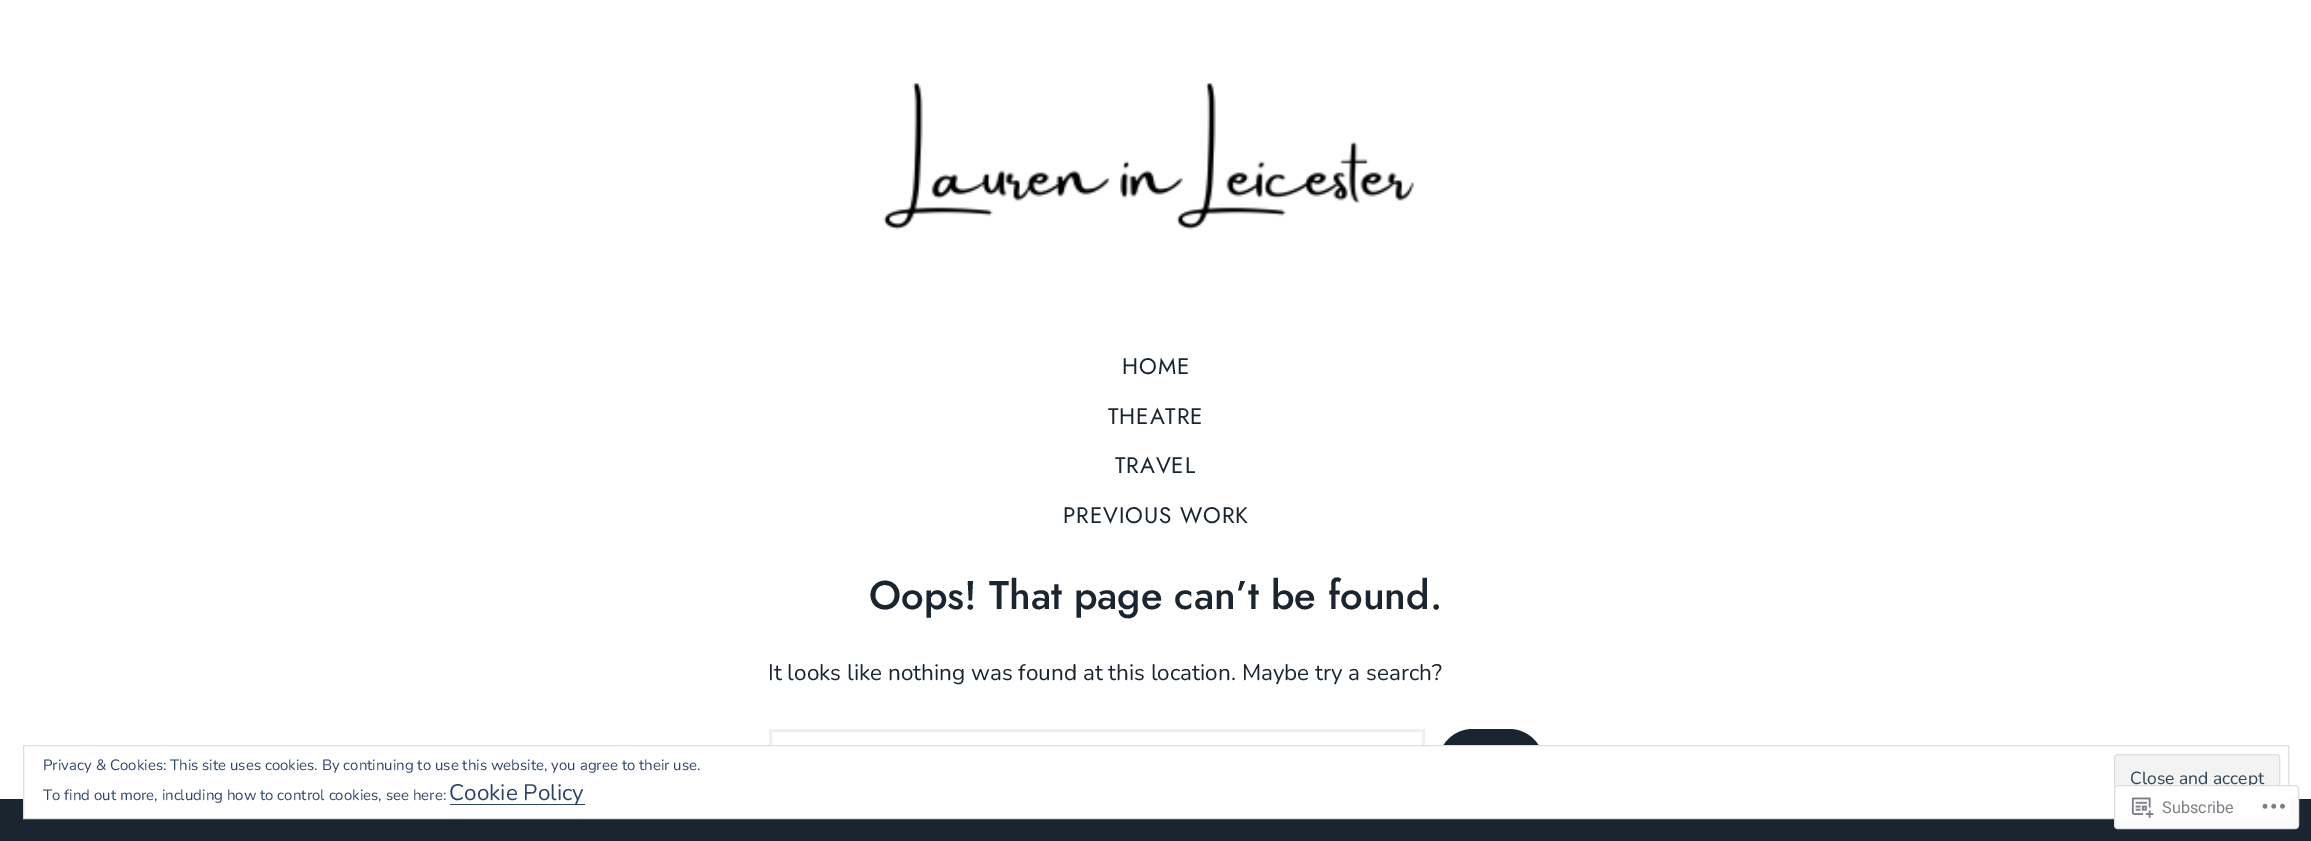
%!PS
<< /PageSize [2311 841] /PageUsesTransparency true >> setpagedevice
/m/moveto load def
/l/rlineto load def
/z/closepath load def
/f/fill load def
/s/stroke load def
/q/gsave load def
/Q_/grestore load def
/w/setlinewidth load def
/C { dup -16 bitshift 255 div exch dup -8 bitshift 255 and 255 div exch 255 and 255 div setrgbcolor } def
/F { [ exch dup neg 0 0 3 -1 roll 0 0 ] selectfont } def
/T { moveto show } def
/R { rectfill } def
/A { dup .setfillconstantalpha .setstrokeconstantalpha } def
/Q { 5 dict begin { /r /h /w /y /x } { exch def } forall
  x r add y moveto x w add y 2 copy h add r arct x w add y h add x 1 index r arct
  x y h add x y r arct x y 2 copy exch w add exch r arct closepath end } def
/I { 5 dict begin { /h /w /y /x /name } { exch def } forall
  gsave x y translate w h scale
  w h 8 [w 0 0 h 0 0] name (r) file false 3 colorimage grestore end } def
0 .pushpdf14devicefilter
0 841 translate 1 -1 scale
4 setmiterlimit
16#FFFFFF C
0 0 2311 841 R
(1.rgb) 883 83 531 147 I
/Jost-Regular 22.5 F
16#1A2530 C
1122 374 m .9 0 (HOME) ashow
1108 424 m .9 0 (THEATRE) ashow
1115 473 m .9 0 (TRAVEL) ashow
1063 523 m .9 0 (PREVIOUS WORK) ashow
/Jost-Medium 40 F
(Oops! That page can’t be found.) 869 609 T
/Nunito-Regular 22.5 F
(It looks like nothing was found at this location. Maybe try a search?) 768 680 T
16#EFEFEF C
3 w
770.5 730.5 653 67 rectstroke
16#1A2530 C
1438 729 106 70 35 Q f
0 799 2311 42 R
16#FFFFFF C
23.5 745.5 m 2265 0 l 0 73 l -2265 0 l z q f Q_
16#DEDEDE C
1 w
s
/Nunito-Regular 15 F
16#2E4467 C
(Privacy & Cookies: This site uses cookies. By continuing to use this website, you agree to their use.) 43 770 T
16#F3F3F3 C
2114.5 754.5 165 48 3.5 Q q f Q_
16#DEDEDE C
s
/Nunito-Regular 17.5 F
16#2E4453 C
(Close and accept) 2130 784 T
/Nunito-Regular 15 F
16#2E4467 C
(To find out more, including how to control cookies, see here:) 43 800 T
450 804 135 1 R
/Nunito-Regular 22.5 F
(Cookie Policy) 449 800 T
0.98 A
16#FFFFFF C
2114 785 185 44 4 Q f
16#DCDCDE C
2114.5 785.5 184 43 3.5 Q s
1 A
(2.rgb) 2131 797 23 21 I
/Roboto-Regular 16.25 F
16#7B7F84 C
(Subscribe) 2162 813 T
(3.rgb) 2262 803 23 6 I
.poppdf14devicefilter showpage
